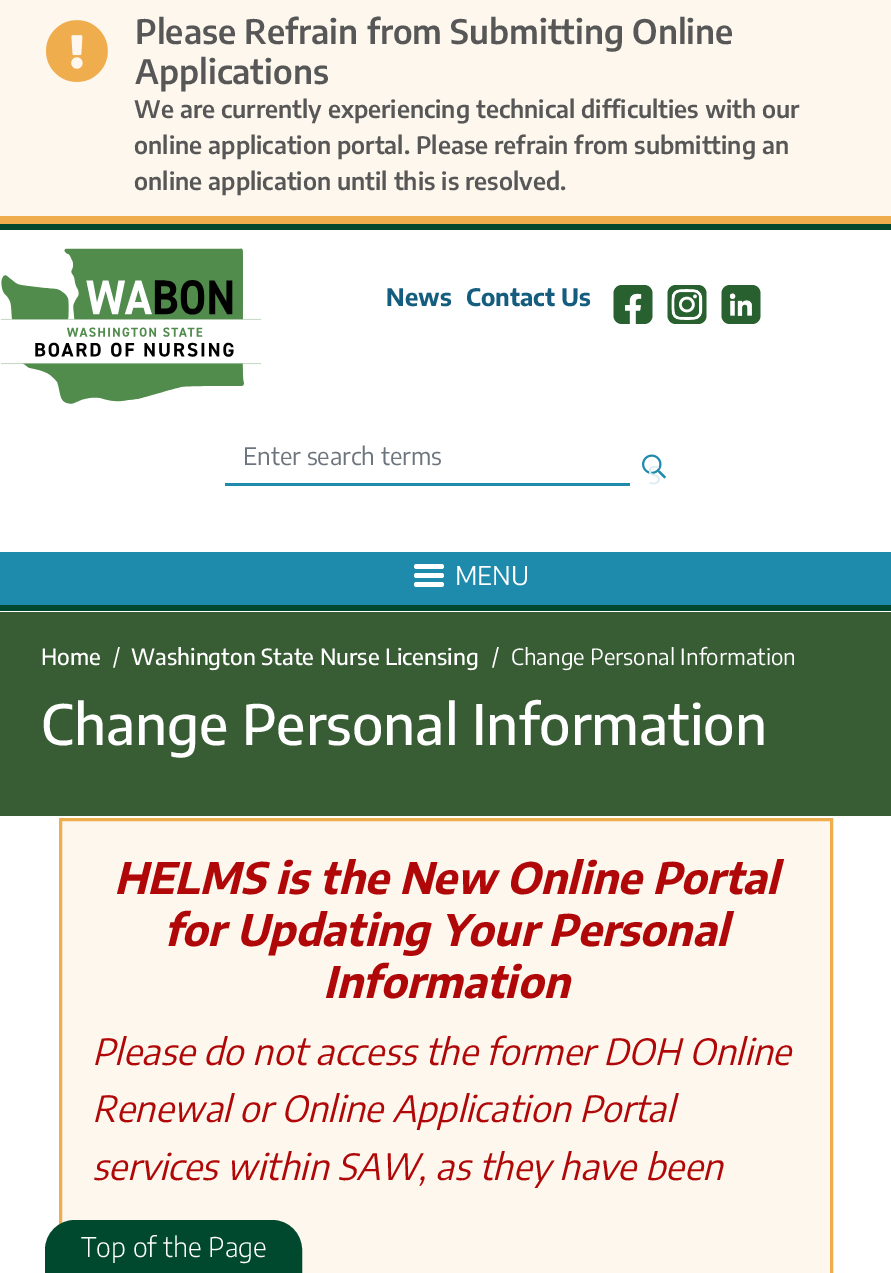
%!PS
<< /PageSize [891 1273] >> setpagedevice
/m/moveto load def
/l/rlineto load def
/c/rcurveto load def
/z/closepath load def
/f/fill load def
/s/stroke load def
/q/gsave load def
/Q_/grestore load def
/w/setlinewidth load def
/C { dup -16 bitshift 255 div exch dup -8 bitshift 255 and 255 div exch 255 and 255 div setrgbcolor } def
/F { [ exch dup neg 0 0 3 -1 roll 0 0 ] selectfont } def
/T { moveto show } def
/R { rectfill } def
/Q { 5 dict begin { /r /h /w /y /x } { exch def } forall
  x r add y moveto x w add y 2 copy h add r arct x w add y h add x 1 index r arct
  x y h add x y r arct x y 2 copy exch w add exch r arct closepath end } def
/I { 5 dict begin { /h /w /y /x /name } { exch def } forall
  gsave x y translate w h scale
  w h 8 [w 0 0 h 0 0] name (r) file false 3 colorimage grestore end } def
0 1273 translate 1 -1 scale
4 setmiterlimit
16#FFFFFF C
0 0 891 1273 R
16#FDF7ED C
0 0 891 216 R
16#F0AD4E C
0 216 891 8 R
(1.rgb) 46 20 62 62 I
/EncodeSansCondensed-SemiBold 33.6 F
16#575757 C
(Please Refrain from Submitting Online) 135 44 T
(Applications) 135 84 T
/EncodeSansCondensed-SemiBold 24 F
(We are currently experiencing technical difficulties with our) 134 118 T
(online application portal. Please refrain from submitting an) 134 154 T
(online application until this is resolved.) 134 190 T
16#00492E C
0 224 891 6 R
(2.rgb) 0 248 262 156 I
/EncodeSansCondensed-Bold 24 F
16#155D7F C
(News) 386 306 T
(Contact Us) 466 306 T
(3.rgb) 613 285 40 39 I
(4.rgb) 667 285 40 39 I
(5.rgb) 721 285 40 39 I
16#1E8AAC C
225 483 405 3 R
/EncodeSansCondensed-Regular 24 F
16#6C757D C
(Enter search terms) 243 465 T
(6.rgb) 642 454 24 25 I
16#DBECF2 C
(S) 648 484 T
16#1E8AAC C
0 552 891 53 R
16#00492E C
0 605 891 6 R
16#FFFFFF C
414 564 30 5 2.5 Q f
/EncodeSansCondensed-Regular 25.5 F
(MENU) 455 585 T
414 573 30 5 2.5 Q f
414 582 30 5 2.5 Q f
16#385C34 C
0 612 891 204 R
/EncodeSansCondensed-Medium 22.25 F
16#FFFFFF C
(Home) 41 665 T
/EncodeSansCondensed-Regular 22.25 F
(/) 113 665 T
/EncodeSansCondensed-Medium 22.25 F
(Washington State Nurse Licensing) 131 665 T
/EncodeSansCondensed-Regular 22.25 F
(/) 492 665 T
(Change Personal Information) 511 665 T
/EncodeSansCondensed-Medium 55.25 F
(Change Personal Information) 41 745 T
16#FDF7ED C
60.5 819.5 m 771 0 l 0 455 l -771 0 l z q f Q_
16#F0AD4E C
3 w
s
16#00492E C
75 1223 m 197 0 l 15 0 27 12 27 27 c 0 21 l -251 0 l 0 -21 l 0 -15 12 -27 27 -27 c z q f Q_
6 w
s
/EncodeSansCondensed-Light 27 F
16#FFFFFF C
(Top of the Page) 81 1257 T
/EncodeSansCondensed-BoldItalic 43.25 F
16#B00808 C
(HELMS is the New Online Portal) 114 894 T
(for Updating Your Personal) 164 946 T
(Information) 323 998 T
/EncodeSansCondensed-Italic 36 F
(Please do not access the former DOH Online) 92 1065 T
(Renewal or Online Application Portal) 92 1122 T
(services within SAW, as they have been) 92 1180 T
showpage
